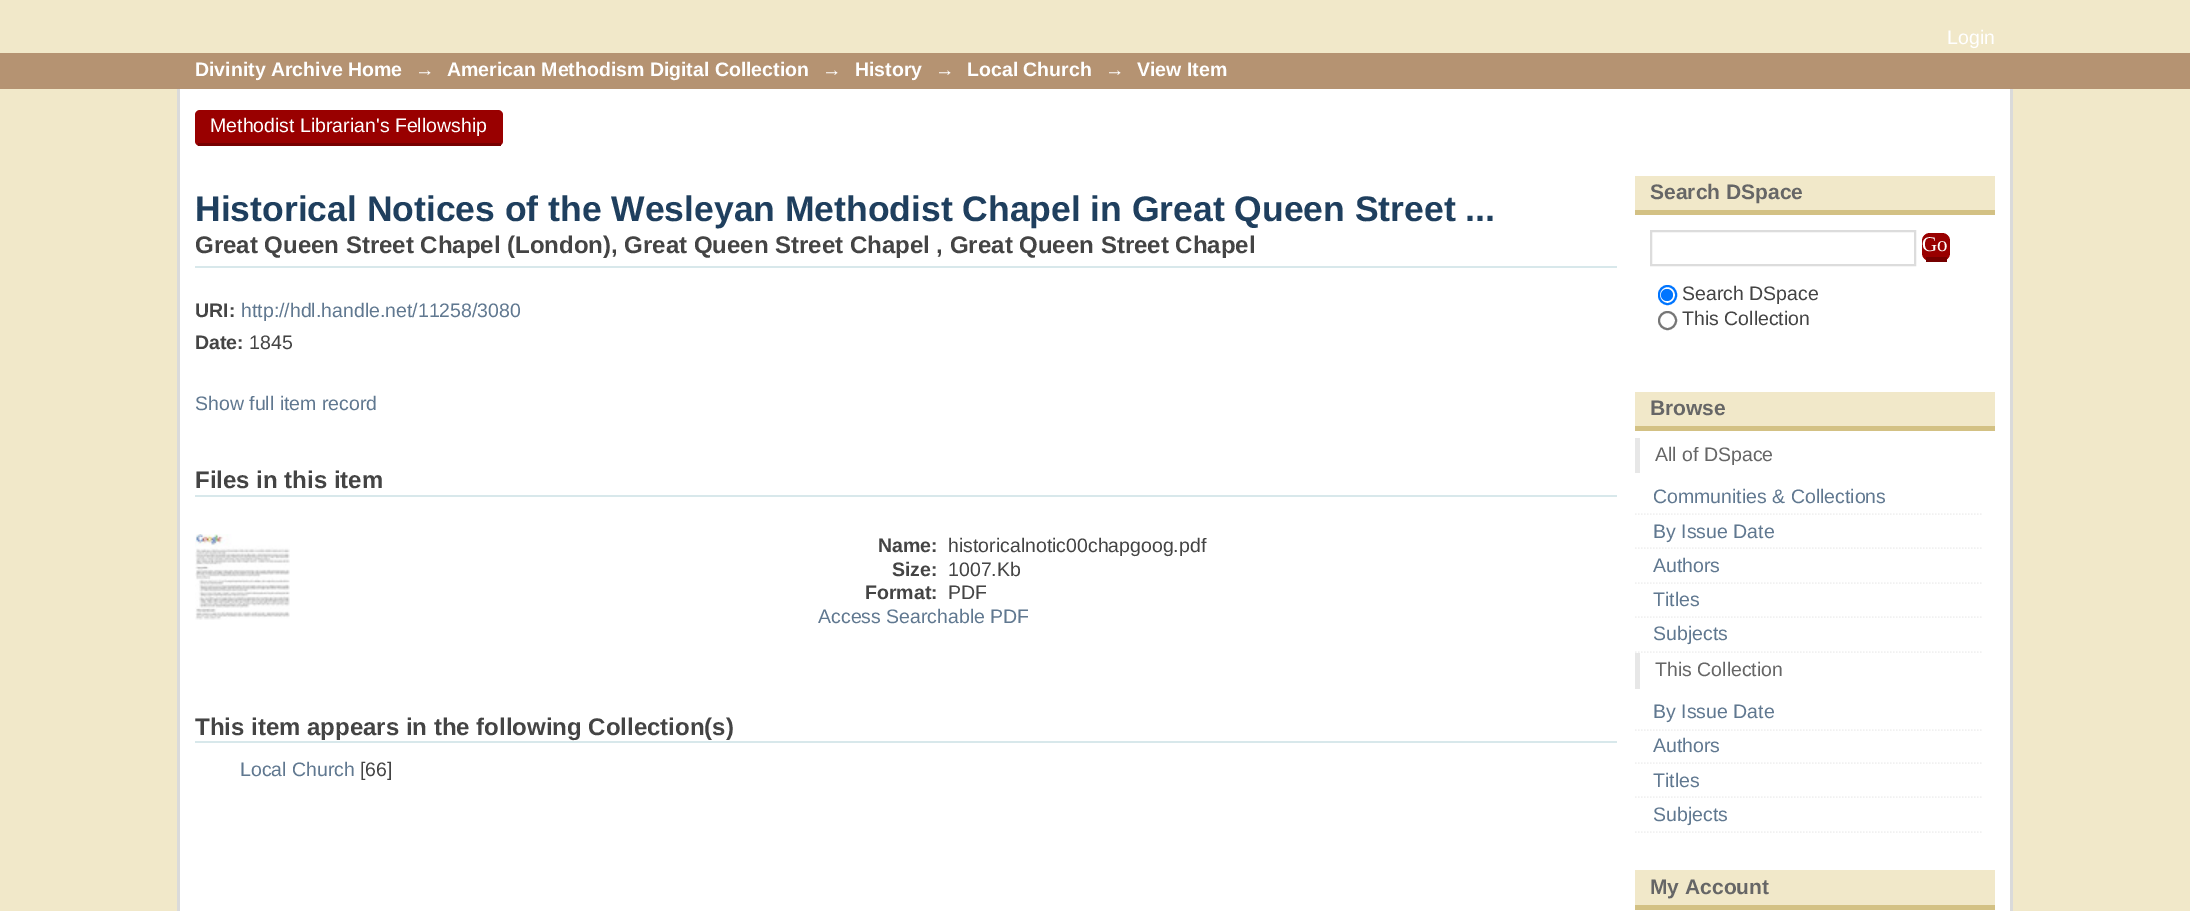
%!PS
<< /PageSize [2190 911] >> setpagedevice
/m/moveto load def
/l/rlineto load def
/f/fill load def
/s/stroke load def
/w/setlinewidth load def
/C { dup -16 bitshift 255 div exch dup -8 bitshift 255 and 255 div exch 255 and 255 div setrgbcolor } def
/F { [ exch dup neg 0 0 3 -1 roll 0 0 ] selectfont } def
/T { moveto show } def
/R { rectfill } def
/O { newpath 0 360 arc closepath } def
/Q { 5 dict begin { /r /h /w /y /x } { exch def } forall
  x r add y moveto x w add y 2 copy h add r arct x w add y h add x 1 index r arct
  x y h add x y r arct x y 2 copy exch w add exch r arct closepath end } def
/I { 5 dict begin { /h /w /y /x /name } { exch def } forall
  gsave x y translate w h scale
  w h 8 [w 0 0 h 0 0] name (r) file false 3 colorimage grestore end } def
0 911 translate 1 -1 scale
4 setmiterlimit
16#F1E8C9 C
0 0 2190 911 R
/LiberationSans-Regular 19.5 F
16#FFFFFF C
(Login) 1947 44 T
16#B59372 C
0 53 2190 36 R
/LiberationSans-Bold 19.5 F
16#FFFFFF C
(Divinity Archive Home) 195 76 T
(→) 415 76 T
(American Methodism Digital Collection) 447 76 T
(→) 822 76 T
(History) 855 76 T
(→) 935 76 T
(Local Church) 967 76 T
(→) 1105 76 T
(View Item) 1137 76 T
180 89 1830 822 R
16#990000 C
195 110 308 36 5 Q f
16#770000 C
198 143 303 3 R
/LiberationSans-Regular 19.5 F
16#FFFFFF C
(Methodist Librarian's Fellowship) 210 132 T
16#DADADA C
2010 89 3 822 R
177 89 3 822 R
/LiberationSans-Bold 35.5 F
16#1F3F5E C
(Historical Notices of the Wesleyan Methodist Chapel in Great Queen Street ...) 195 221 T
16#D8E8EB C
195 266 1422 2 R
/LiberationSans-Bold 24 F
16#444444 C
(Great Queen Street Chapel \(London\), Great Queen Street Chapel , Great Queen Street Chapel) 195 253 T
/LiberationSans-Bold 19.5 F
(URI:) 195 317 T
/LiberationSans-Regular 19.5 F
16#607890 C
(http://hdl.handle.net/11258/3080) 241 317 T
/LiberationSans-Bold 19.5 F
16#444444 C
(Date:) 195 349 T
/LiberationSans-Regular 19.5 F
(1845) 249 349 T
16#607890 C
(Show full item record) 195 410 T
16#D8E8EB C
195 495 1422 2 R
/LiberationSans-Bold 24 F
16#444444 C
(Files in this item) 195 488 T
(1.rgb) 195 534 95 86 I
/LiberationSans-Bold 19.5 F
(Name:) 878 552 T
/LiberationSans-Regular 19.5 F
(historicalnotic00chapgoog.pdf) 948 552 T
/LiberationSans-Bold 19.5 F
(Size:) 892 576 T
/LiberationSans-Regular 19.5 F
(1007.Kb) 948 576 T
/LiberationSans-Bold 19.5 F
(Format:) 865 599 T
/LiberationSans-Regular 19.5 F
(PDF) 948 599 T
16#607890 C
(Access Searchable PDF) 818 623 T
16#D8E8EB C
195 741 1422 2 R
/LiberationSans-Bold 24 F
16#444444 C
(This item appears in the following Collection\(s\)) 195 735 T
/LiberationSans-Regular 19.5 F
16#607890 C
(Local Church) 240 776 T
16#444444 C
([66]) 360 776 T
16#F1E8C9 C
1635 176 360 34 R
16#D3C184 C
1635 210 360 5 R
/LiberationSans-Bold 21 F
16#666666 C
(Search DSpace) 1650 199 T
16#DCDCDC C
2 w
1651 231 264 34 rectstroke
16#990000 C
1922 233 28 28 8 Q f
16#750000 C
1926 257 21 5 R
/LiberationSerif-Regular 21 F
16#FFFFFF C
(Go) 1922 251 T
16#0075FF C
1659 286 17 18 8.5 Q s
1667 295 6 O f
/LiberationSans-Regular 19.5 F
16#444444 C
(Search DSpace) 1682 300 T
16#767676 C
1667.5 320.5 8.5 O s
16#444444 C
(This Collection) 1682 325 T
16#F1E8C9 C
1635 392 360 34 R
16#D3C184 C
1635 426 360 5 R
/LiberationSans-Bold 21 F
16#666666 C
(Browse) 1650 415 T
16#E7E7E7 C
1635 438 5 35 R
/LiberationSans-Regular 19.5 F
16#666666 C
(All of DSpace) 1655 461 T
16#F1F1F1 C
1.5 w
[1.5 1.5] 0 setdash
1635 514 m 348 0 l s
16#607890 C
(Communities & Collections) 1653 503 T
16#F1F1F1 C
1635 548 m 348 0 l s
16#607890 C
(By Issue Date) 1653 538 T
16#F1F1F1 C
1635 583 m 348 0 l s
16#607890 C
(Authors) 1653 572 T
16#F1F1F1 C
1635 617 m 348 0 l s
16#607890 C
(Titles) 1653 606 T
16#F1F1F1 C
1635 652 m 348 0 l s
16#607890 C
(Subjects) 1653 640 T
16#E7E7E7 C
1635 653 5 36 R
16#666666 C
(This Collection) 1655 676 T
16#F1F1F1 C
1635 730 m 348 0 l s
16#607890 C
(By Issue Date) 1653 718 T
16#F1F1F1 C
1635 763 m 348 0 l s
16#607890 C
(Authors) 1653 752 T
16#F1F1F1 C
1635 797 m 348 0 l s
16#607890 C
(Titles) 1653 787 T
16#F1F1F1 C
1635 832 m 348 0 l s
16#607890 C
(Subjects) 1653 821 T
16#F1E8C9 C
1635 870 360 35 R
16#D3C184 C
1635 905 360 5 R
/LiberationSans-Bold 21 F
16#666666 C
(My Account) 1650 894 T
showpage
